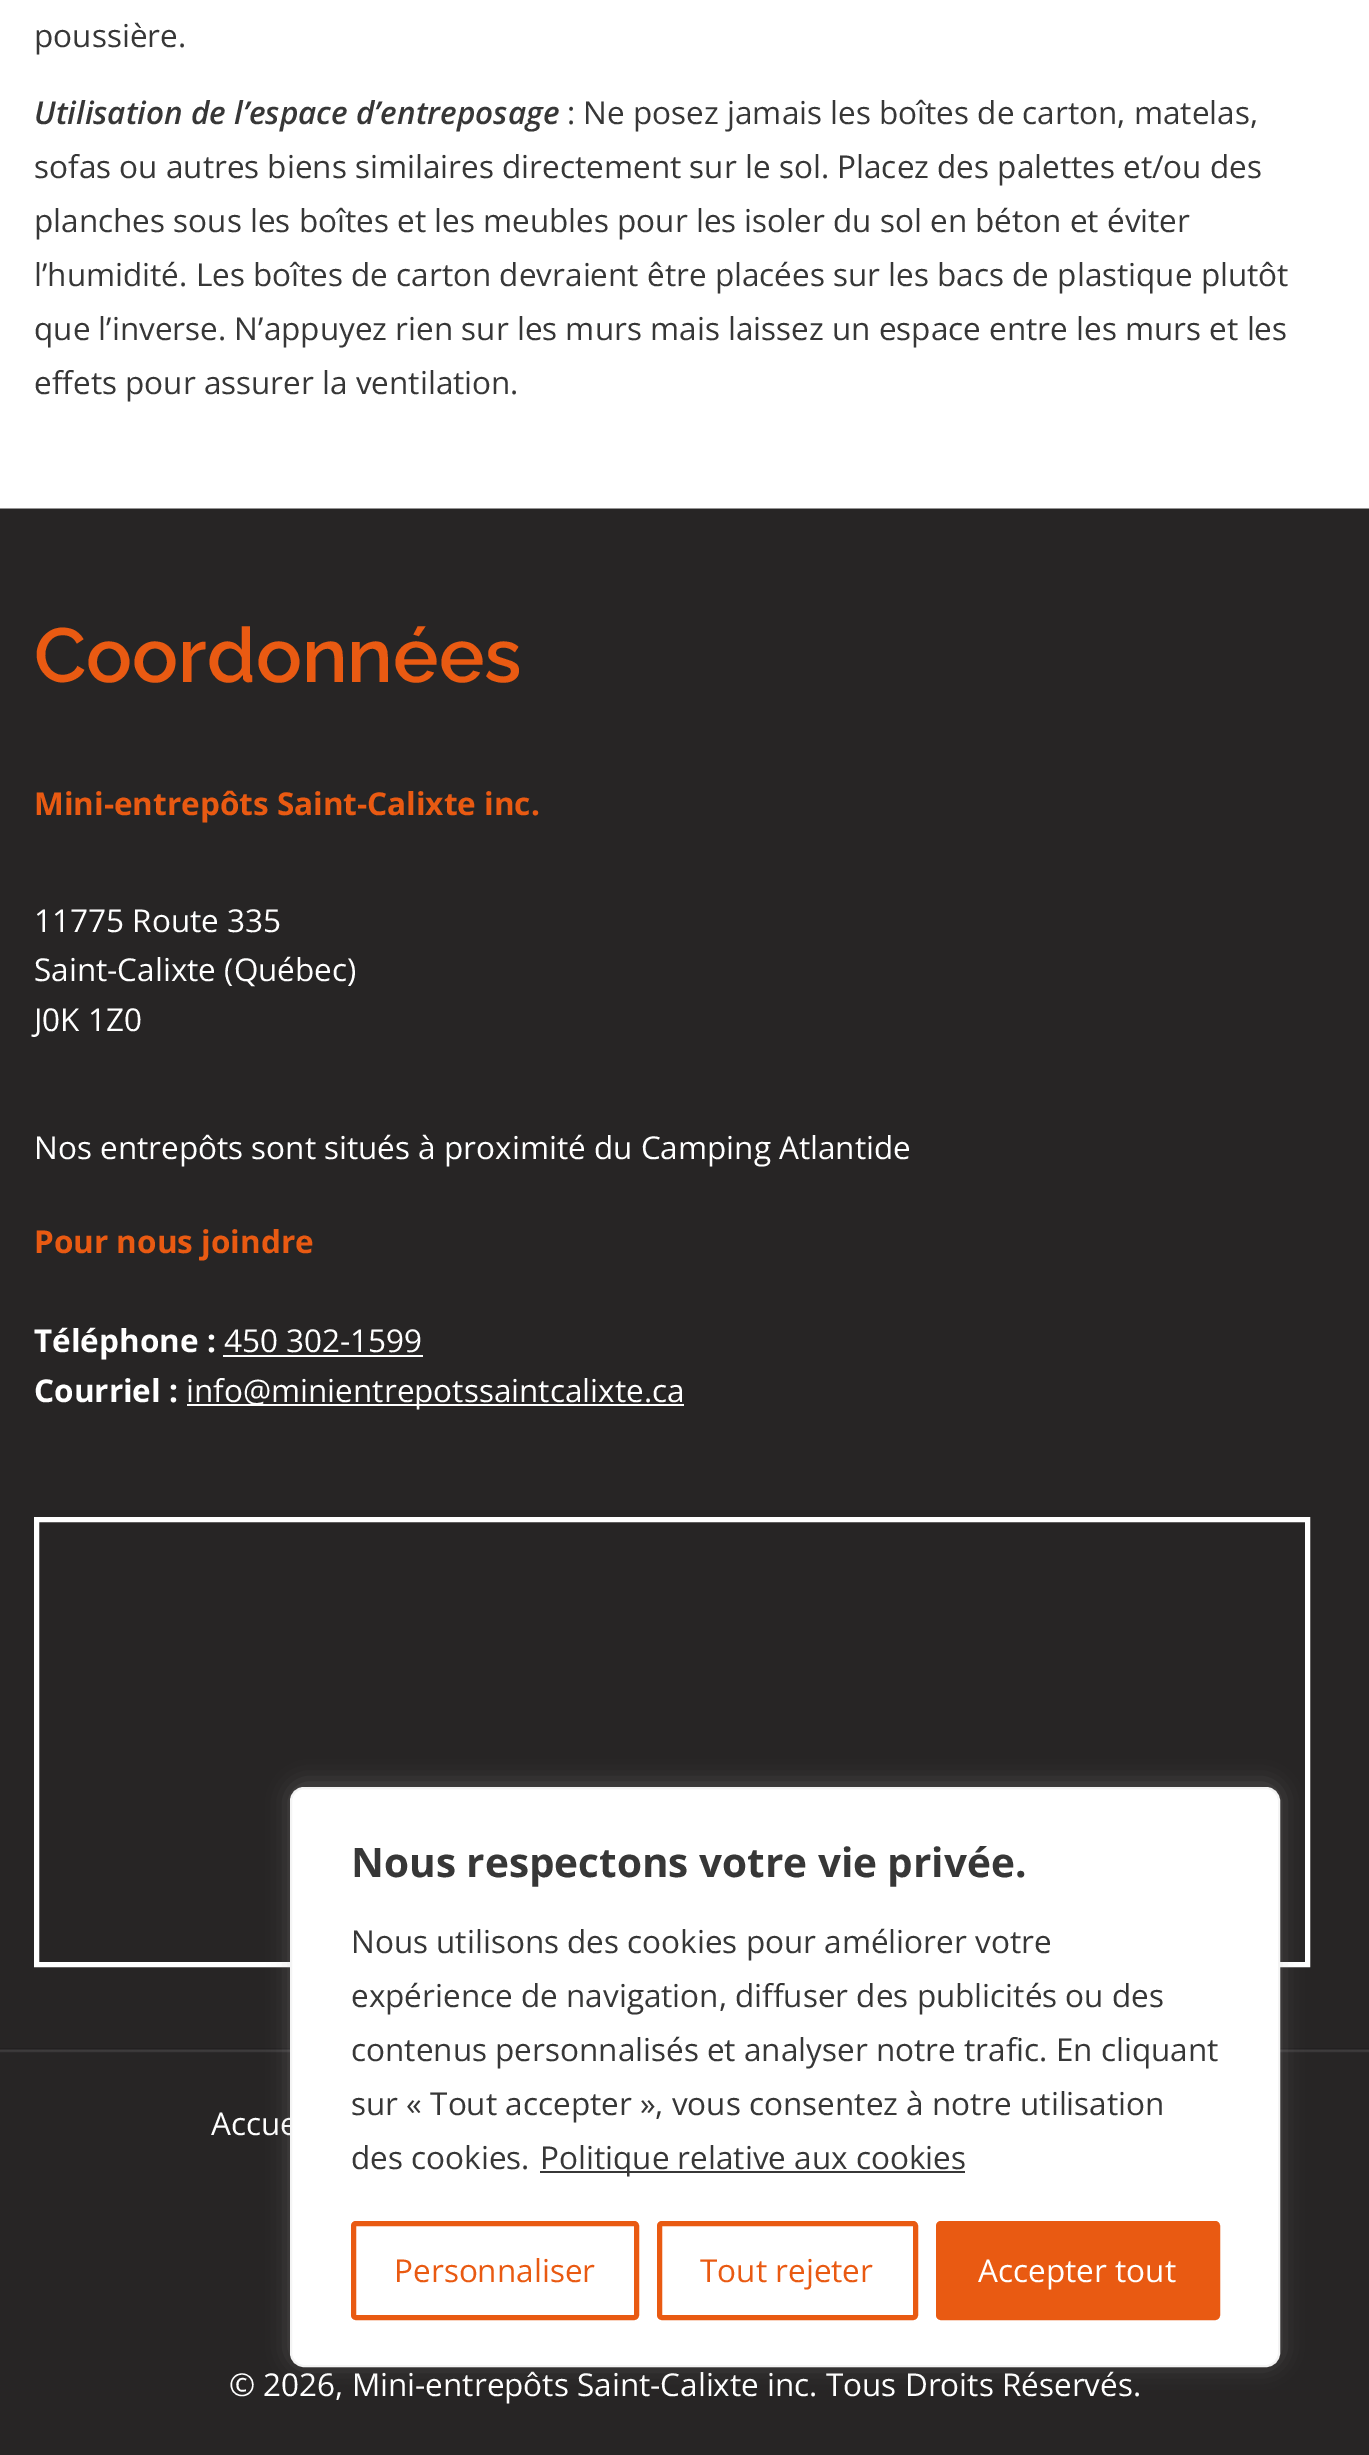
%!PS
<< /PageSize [1369 2455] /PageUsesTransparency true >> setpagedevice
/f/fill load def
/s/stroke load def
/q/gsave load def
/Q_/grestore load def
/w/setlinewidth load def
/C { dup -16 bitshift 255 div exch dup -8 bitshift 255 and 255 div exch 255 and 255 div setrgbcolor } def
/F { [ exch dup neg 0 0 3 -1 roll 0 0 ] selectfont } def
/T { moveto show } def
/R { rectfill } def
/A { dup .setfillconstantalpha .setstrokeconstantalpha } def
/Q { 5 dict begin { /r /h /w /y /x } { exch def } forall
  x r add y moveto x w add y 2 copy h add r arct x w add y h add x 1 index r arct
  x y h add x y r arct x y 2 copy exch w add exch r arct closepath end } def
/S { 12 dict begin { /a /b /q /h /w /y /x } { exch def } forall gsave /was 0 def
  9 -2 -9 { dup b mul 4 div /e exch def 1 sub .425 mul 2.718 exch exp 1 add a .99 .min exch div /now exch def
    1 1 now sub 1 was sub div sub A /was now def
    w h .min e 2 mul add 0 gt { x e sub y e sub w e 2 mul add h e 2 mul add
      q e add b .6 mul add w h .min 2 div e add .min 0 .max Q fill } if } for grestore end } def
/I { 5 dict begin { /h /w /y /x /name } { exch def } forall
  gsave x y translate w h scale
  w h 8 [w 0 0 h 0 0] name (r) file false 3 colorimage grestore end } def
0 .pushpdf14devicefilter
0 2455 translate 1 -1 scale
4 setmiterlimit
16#FFFFFF C
0 0 1369 2455 R
/OpenSans-Regular 31.5 F
16#373737 C
(poussière.) 34 47 T
/OpenSans-SemiBoldItalic 31.5 F
(Utilisation de l’espace d’entreposage) 34 124 T
/OpenSans-Regular 31.5 F
(: Ne posez jamais les boîtes de carton, matelas,) 567 124 T
(sofas ou autres biens similaires directement sur le sol. Placez des palettes et/ou des) 34 178 T
(planches sous les boîtes et les meubles pour les isoler du sol en béton et éviter) 34 232 T
(l’humidité. Les boîtes de carton devraient être placées sur les bacs de plastique plutôt) 34 286 T
(que l’inverse. N’appuyez rien sur les murs mais laissez un espace entre les murs et les) 34 340 T
(effets pour assurer la ventilation.) 34 394 T
16#272525 C
0 509 1369 1946 R
16#949393 C
0 508 1369 1 R
/Raleway-SemiBold 76.5 F
16#E95A12 C
(Coordonnées) 34 682 T
/OpenSans-Bold 31.5 F
(Mini-entrepôts Saint-Calixte inc.) 34 815 T
/OpenSans-Regular 31.5 F
16#FFFFFF C
(11775 Route 335) 34 932 T
(Saint-Calixte \(Québec\)) 34 981 T
(J0K 1Z0) 34 1031 T
(Nos entrepôts sont situés à proximité du Camping Atlantide) 34 1159 T
/OpenSans-Bold 31.5 F
16#E95A12 C
(Pour nous joindre) 34 1253 T
16#FFFFFF C
(Téléphone :) 34 1352 T
/OpenSans-Regular 31.5 F
(450 302-1599) 224 1352 T
223 1355 200 2 R
/OpenSans-Bold 31.5 F
(Courriel :) 34 1402 T
187 1404 497 2 R
/OpenSans-Regular 31.5 F
(info@minientrepotssaintcalixte.ca) 186 1402 T
5 w
36.5 1519.5 1271 445 rectstroke
(1.rgb) 0 2048 1369 5 I
(Accue) 211 2135 T
(© 2026, Mini-entrepôts Saint-Calixte inc. Tous Droits Réservés.) 229 2396 T
16#ACABAB C
290 1784 990 581 14 11 .3 S
16#FFFFFF C
291 1788 988 578 13 Q q f Q_
16#F4F4F4 C
2 w
s
/OpenSans-Bold 40.5 F
16#373737 C
(Nous respectons votre vie privée.) 351 1877 T
/OpenSans-Regular 31.5 F
(Nous utilisons des cookies pour améliorer votre) 351 1953 T
(expérience de navigation, diffuser des publicités ou des) 351 2007 T
(contenus personnalisés et analyser notre trafic. En cliquant) 351 2061 T
(sur « Tout accepter », vous consentez à notre utilisation) 351 2115 T
(des cookies.) 351 2169 T
540 2171 425 2 R
(Politique relative aux cookies) 540 2169 T
16#E95A12 C
5 w
353.5 2223.5 283 94 2.5 Q s
(Personnaliser) 394 2282 T
659.5 2223.5 256 94 2.5 Q s
(Tout rejeter) 700 2282 T
938.5 2223.5 279 94 2.5 Q q f Q_
s
16#FFFFFF C
(Accepter tout) 978 2282 T
.poppdf14devicefilter showpage
